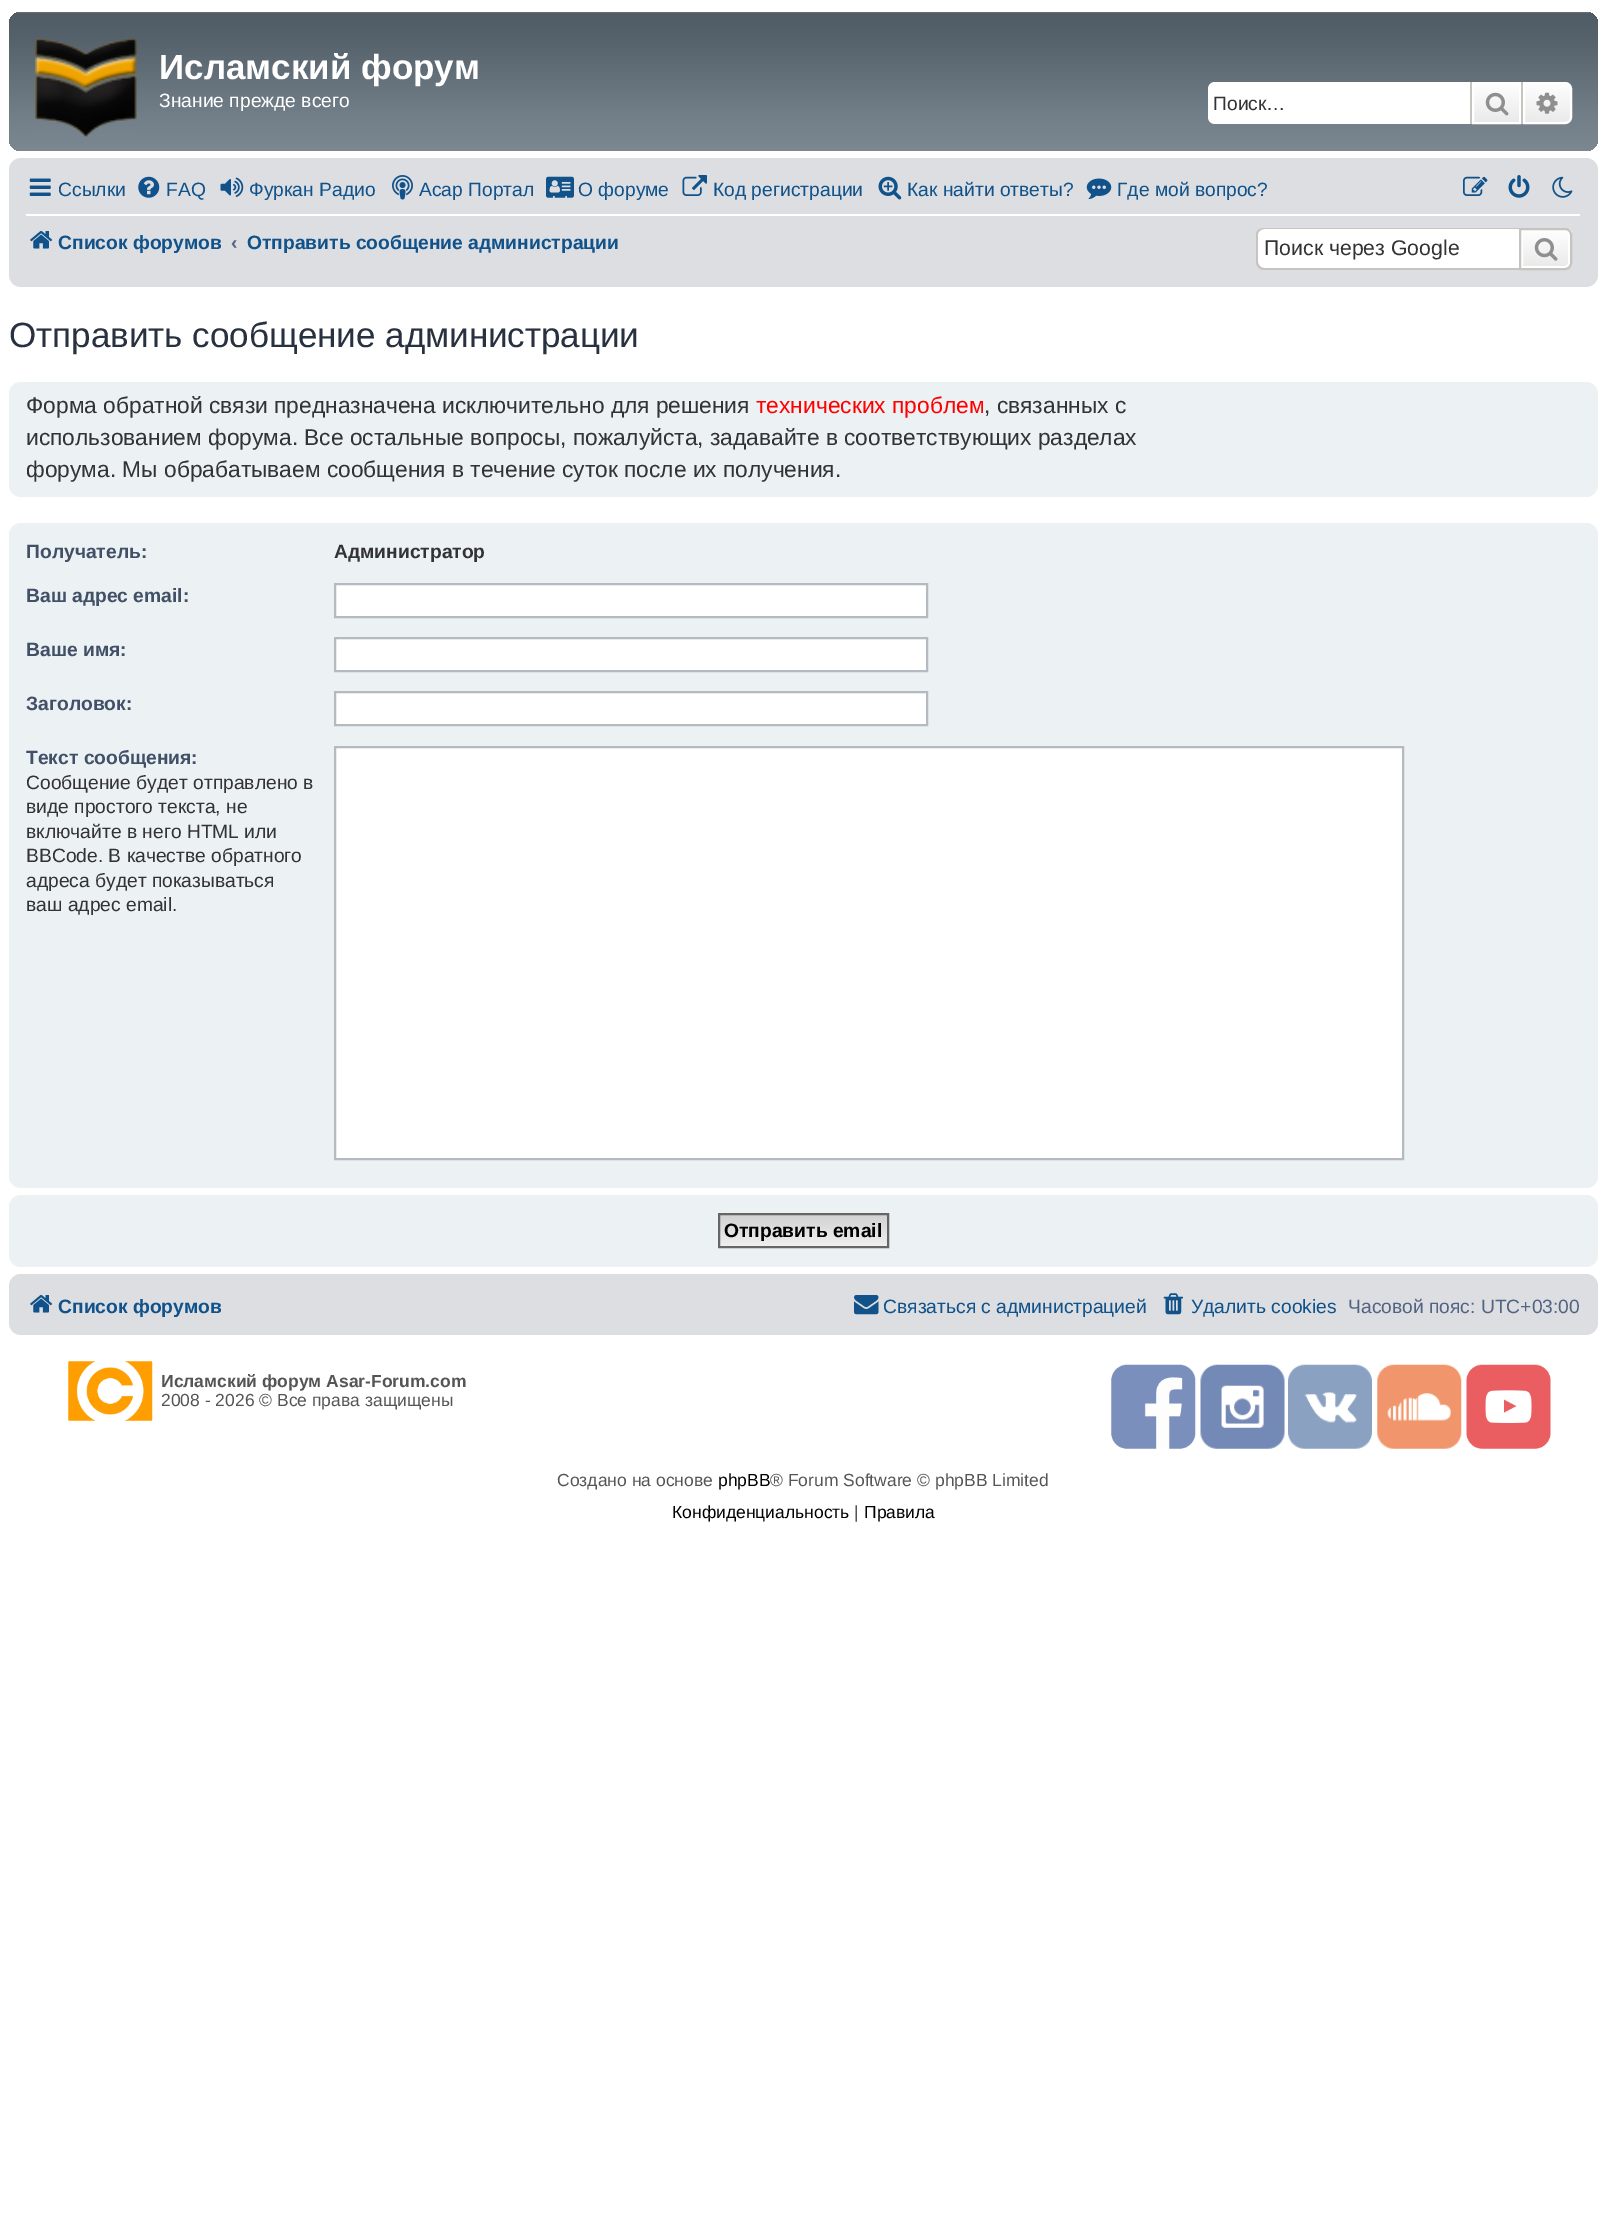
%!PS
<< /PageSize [1605 2224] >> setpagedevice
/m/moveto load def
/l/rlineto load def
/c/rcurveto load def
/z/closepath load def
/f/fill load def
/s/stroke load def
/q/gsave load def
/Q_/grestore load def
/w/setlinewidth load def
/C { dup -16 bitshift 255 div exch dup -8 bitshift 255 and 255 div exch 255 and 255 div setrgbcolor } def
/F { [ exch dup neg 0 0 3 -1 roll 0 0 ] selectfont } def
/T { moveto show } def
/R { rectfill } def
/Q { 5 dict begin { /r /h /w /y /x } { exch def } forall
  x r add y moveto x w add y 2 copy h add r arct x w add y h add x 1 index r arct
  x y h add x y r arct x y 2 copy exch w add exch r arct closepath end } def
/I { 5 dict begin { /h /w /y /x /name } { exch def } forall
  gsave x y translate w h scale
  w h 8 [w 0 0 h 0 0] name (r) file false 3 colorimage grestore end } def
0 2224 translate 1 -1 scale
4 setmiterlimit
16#FFFFFF C
0 0 1605 2224 R
q 9 12 1589 139 12 Q clip newpath
<< /ShadingType 2 /ColorSpace /DeviceRGB /Coords [803 12 803 151] /Extend [true true] /Function << /FunctionType 3 /Domain [0 1] /Functions [<< /FunctionType 2 /Domain [0 1] /C0 [.431 .467 .498] /C1 [.314 .361 .396] /N 1 >> << /FunctionType 2 /Domain [0 1] /C0 [.314 .361 .396] /C1 [.337 .384 .42] /N 1 >> << /FunctionType 2 /Domain [0 1] /C0 [.337 .384 .42] /C1 [.451 .498 .533] /N 1 >> << /FunctionType 2 /Domain [0 1] /C0 [.451 .498 .533] /C1 [.486 .533 .569] /N 1 >>] /Bounds [.01 .2 .75] /Encode [0 1 0 1 0 1 0 1] >> >> shfill Q_
(1.rgb) 35 38 102 99 I
/LiberationSans-Bold 35 F
(Исламский форум) 159 79 T
/LiberationSans-Regular 19.25 F
(Знание прежде всего) 159 107 T
1215 82 m 255 0 l 0 42 l -255 0 l -4 0 -7 -3 -7 -7 c 0 -28 l 0 -4 3 -7 7 -7 c z f
16#333333 C
(Поиск…) 1213 110 T
q 1474 84 m 45 0 l 0 38 l -45 0 l z clip newpath
<< /ShadingType 2 /ColorSpace /DeviceRGB /Coords [1496 82 1496 124] /Extend [true true] /Function << /FunctionType 2 /Domain [0 1] /C0 [1 1 1] /C1 [.914 .914 .914] /N 1 >> >> shfill Q_
16#FFFFFF C
2 w
1473 83 47 40 rectstroke
16#C7C3BF C
1521 82 2 42 R
1470 82 2 42 R
(2.rgb) 1485 92 24 24 I
q 1524 83 m 41 0 l 3.5 0 6 2.5 6 6 c 0 28 l 0 3.5 -2.5 6 -6 6 c -41 0 l z clip newpath
<< /ShadingType 2 /ColorSpace /DeviceRGB /Coords [1547 82 1547 124] /Extend [true true] /Function << /FunctionType 2 /Domain [0 1] /C0 [1 1 1] /C1 [.914 .914 .914] /N 1 >> >> shfill Q_
16#FFFFFF C
1524 83 m 41 0 l 3.5 0 6 2.5 6 6 c 0 28 l 0 3.5 -2.5 6 -6 6 c -41 0 l z s
(3.rgb) 1536 92 22 22 I
16#DCDEE2 C
9 158 1589 129 12 Q f
(4.rgb) 29 178 22 18 I
16#105289 C
(Ссылки) 58 196 T
(5.rgb) 138 176 22 22 I
(FAQ) 166 196 T
(6.rgb) 220 177 24 20 I
(Фуркан Радио) 249 196 T
(7.rgb) 392 175 21 25 I
(Асар Портал) 419 196 T
(8.rgb) 546 176 28 22 I
(О форуме) 578 196 T
(9.rgb) 682 175 25 21 I
(Код регистрации) 713 196 T
(10.rgb) 878 176 24 24 I
(Как найти ответы?) 907 196 T
(11.rgb) 1086 178 26 21 I
(Где мой вопрос?) 1117 196 T
(12.rgb) 1463 176 25 20 I
(13.rgb) 1508 175 22 23 I
(14.rgb) 1552 176 21 22 I
16#FFFFFF C
26 214 1554 2 R
(15.rgb) 30 231 23 18 I
/LiberationSans-Bold 19.25 F
16#105289 C
(Список форумов) 58 249 T
16#536482 C
(‹) 231 249 T
16#105289 C
(Отправить сообщение администрации) 247 249 T
16#FFFFFF C
1263 229 m 256 0 l 0 39 l -256 0 l -3 0 -5 -2 -5 -5 c 0 -29 l 0 -3 2 -5 5 -5 c z f
16#C7C3BF C
1264 228 m 255 0 l 0 42 l -255 0 l -4 0 -8 -4 -8 -8 c 0 -28 l 0 -3 4 -6 8 -6 c z 1264 229 m 255 0 l 0 39 l -255 0 l -3 0 -6 -3 -6 -6 c 0 -28 l 0 -2 3 -5 6 -5 c z eofill
/LiberationSans-Regular 21.25 F
16#333333 C
(Поиск через Google) 1264 255 T
q
1519 228 m 46 0 l 4 0 7 3 7 7 c 0 28 l 0 4 -3 7 -7 7 c -46 0 l z clip newpath
q 1523 229 m 49 0 l 0 39 l -49 0 l z clip newpath
<< /ShadingType 2 /ColorSpace /DeviceRGB /Coords [1545 229 1545 268] /Extend [true true] /Function << /FunctionType 2 /Domain [0 1] /C0 [1 1 1] /C1 [.914 .914 .914] /N 1 >> >> shfill Q_
Q_
16#FFFFFF C
1522 230 m 43 0 l 2 0 4 2 4 4 c 0 29 l 0 2 -2 4 -4 4 c -43 0 l z s
16#C7C3BF C
1520 229 m 45 0 l 3.5 0 6 2.5 6 6 c 0 28 l 0 3.5 -2.5 6 -6 6 c -45 0 l z s
(16.rgb) 1534 238 24 23 I
/LiberationSans-Regular 35 F
16#28313F C
(Отправить сообщение администрации) 9 347 T
16#ECF1F3 C
9 382 1589 115 12 Q f
/LiberationSans-Regular 22.75 F
16#333333 C
(Форма обратной связи предназначена исключительно для решения) 26 413 T
16#FF0000 C
(технических проблем) 756 413 T
16#333333 C
(, связанных с) 984 413 T
(использованием форума. Все остальные вопросы, пожалуйста, задавайте в соответствующих разделах) 26 445 T
(форума. Мы обрабатываем сообщения в течение суток после их получения.) 26 477 T
16#ECF1F3 C
9 523 1589 665 12 Q f
/LiberationSans-Bold 19.25 F
16#425067 C
(Получатель:) 26 558 T
16#333333 C
(Администратор) 334 558 T
16#425067 C
(Ваш адрес email:) 26 602 T
16#FFFFFF C
335 584 m 592 0 l 0 33 l -592 0 l z q f Q_
16#B4BAC0 C
s
16#425067 C
(Ваше имя:) 26 656 T
16#FFFFFF C
335 638 m 592 0 l 0 33 l -592 0 l z q f Q_
16#B4BAC0 C
s
16#425067 C
(Заголовок:) 26 710 T
16#FFFFFF C
335 692 m 592 0 l 0 33 l -592 0 l z q f Q_
16#B4BAC0 C
s
16#425067 C
(Текст сообщения:) 26 764 T
/LiberationSans-Regular 19.25 F
16#333333 C
(Сообщение будет отправлено в) 26 789 T
(виде простого текста, не) 26 813 T
(включайте в него HTML или) 26 838 T
(BBCode. В качестве обратного) 26 862 T
(адреса будет показываться) 26 887 T
(ваш адрес email.) 26 911 T
16#FFFFFF C
335 747 m 1068 0 l 0 412 l -1068 0 l z q f Q_
16#B4BAC0 C
s
16#ECF1F3 C
9 1195 1589 72 12 Q f
q 720 1215 m 167 0 l 0 31 l -167 0 l z clip newpath
<< /ShadingType 2 /ColorSpace /DeviceRGB /Coords [803 1215 803 1246] /Extend [true true] /Function << /FunctionType 2 /Domain [0 1] /C0 [.824 .824 .824] /C1 [.937 .937 .937] /N 1 >> >> shfill Q_
16#666666 C
719 1214 169 33 rectstroke
/LiberationSans-Bold 19.25 F
16#000000 C
(Отправить email) 724 1237 T
16#DCDEE2 C
9 1274 1589 61 12 Q f
(15.rgb) 30 1295 23 18 I
16#105289 C
(Список форумов) 58 1313 T
(17.rgb) 854 1295 25 20 I
/LiberationSans-Regular 19.25 F
(Связаться с администрацией) 883 1313 T
(18.rgb) 1163 1293 20 22 I
(Удалить cookies) 1191 1313 T
16#536482 C
(Часовой пояс: UTC+03:00) 1348 1313 T
(19.rgb) 68 1361 85 60 I
/LiberationSans-Bold 17.5 F
16#555555 C
(Исламский форум Asar-Forum.com) 161 1387 T
/LiberationSans-Regular 17.5 F
(2008 - 2026 © Все права защищены) 161 1406 T
(20.rgb) 1111 1364 85 85 I
(21.rgb) 1200 1364 85 85 I
(22.rgb) 1288 1364 84 85 I
(23.rgb) 1377 1364 85 85 I
(24.rgb) 1466 1364 85 85 I
(Создано на основе) 557 1486 T
16#000000 C
(phpBB) 718 1486 T
16#555555 C
(® Forum Software © phpBB Limited) 770 1486 T
16#000000 C
(Конфиденциальность) 672 1518 T
16#555555 C
(|) 854 1518 T
16#000000 C
(Правила) 864 1518 T
showpage
